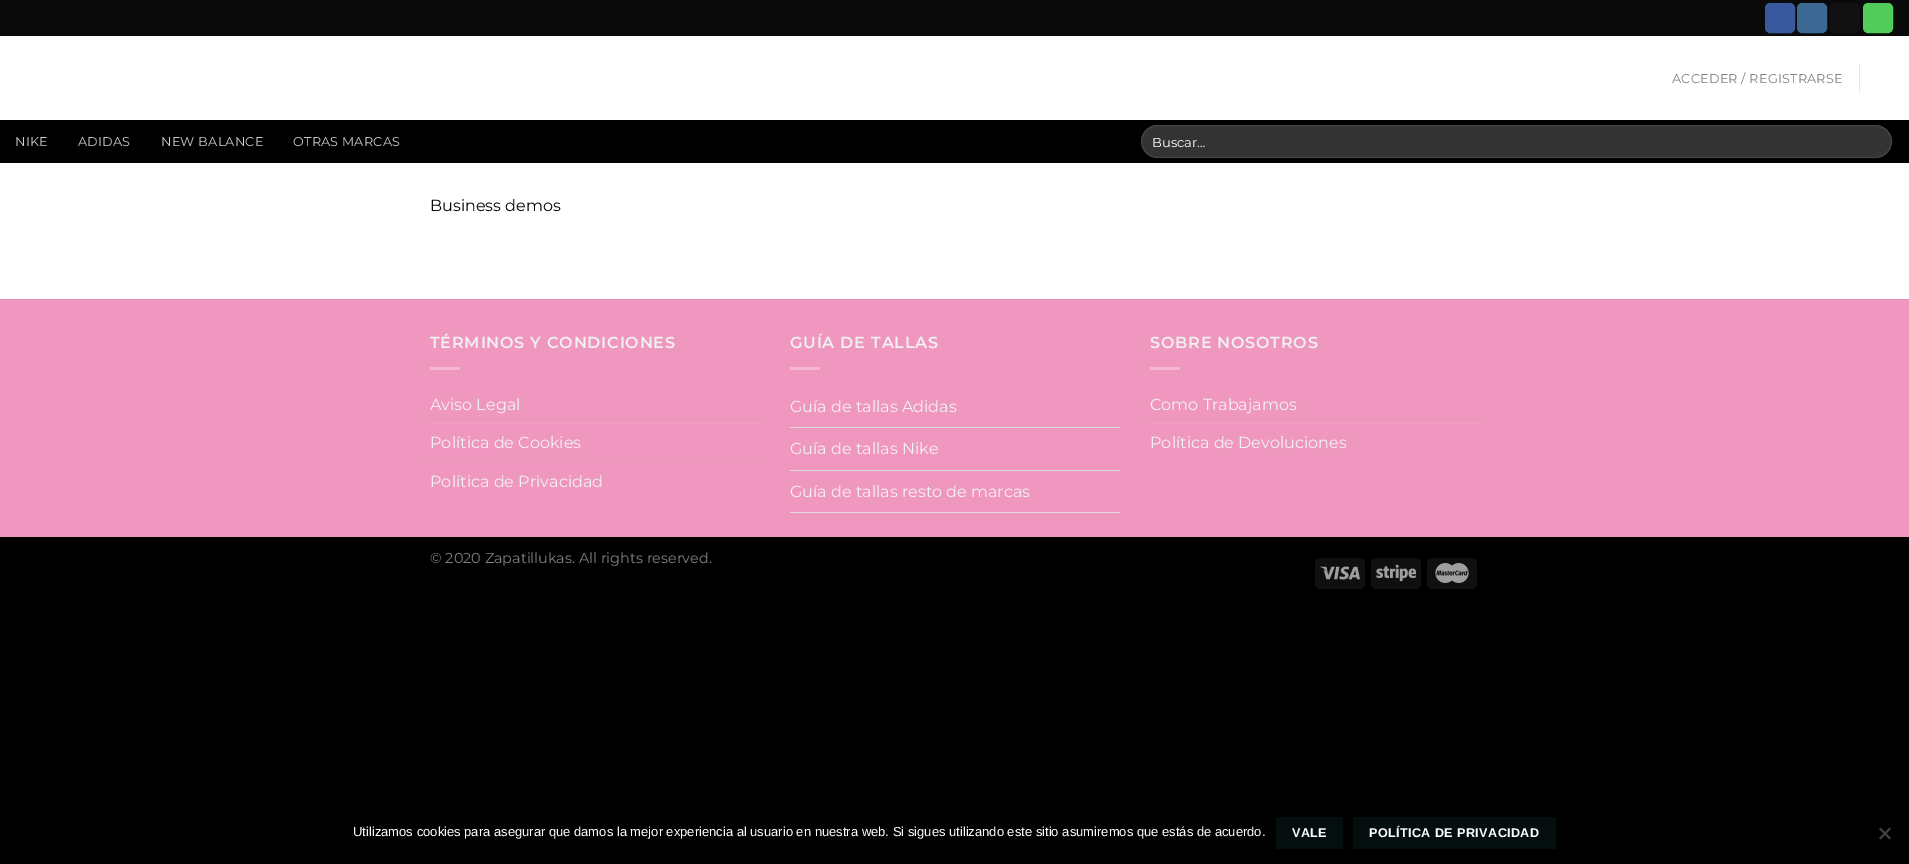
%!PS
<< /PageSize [1909 864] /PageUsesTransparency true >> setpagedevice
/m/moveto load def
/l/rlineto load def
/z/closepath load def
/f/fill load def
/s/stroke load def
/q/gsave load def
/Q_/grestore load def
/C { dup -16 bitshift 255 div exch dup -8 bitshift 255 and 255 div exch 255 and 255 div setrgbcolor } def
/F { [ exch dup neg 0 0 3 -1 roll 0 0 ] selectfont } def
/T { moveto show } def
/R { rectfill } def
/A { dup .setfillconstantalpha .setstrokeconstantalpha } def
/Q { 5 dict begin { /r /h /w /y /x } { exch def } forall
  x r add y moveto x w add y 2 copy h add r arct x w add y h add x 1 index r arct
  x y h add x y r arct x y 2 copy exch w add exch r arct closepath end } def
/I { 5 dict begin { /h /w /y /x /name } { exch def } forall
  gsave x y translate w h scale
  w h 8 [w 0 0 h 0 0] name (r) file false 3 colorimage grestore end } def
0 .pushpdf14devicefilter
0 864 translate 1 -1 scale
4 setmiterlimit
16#000000 C
0 0 1909 864 R
16#FFFFFF C
0 36 1909 263 R
16#0A0A0A C
0 0 1909 36 R
16#3A589D C
1765.5 3.5 29 29 4.5 Q q f Q_
s
16#3B6994 C
1797.5 3.5 29 29 4.5 Q q f Q_
s
16#111111 C
1830 3 30 30 5 Q f
16#51CB5A C
1863.5 3.5 29 29 4.5 Q q f Q_
s
/Montserrat-Regular 12.75 F
16#808080 C
1672 83 m .25 0 (ACCEDER / REGISTRARSE) ashow
16#E6E6E6 C
1859 63 1 30 R
16#000000 C
0 120 1909 43 R
16#CCCCCC C
15 146 m .25 0 (NIKE) ashow
78 146 m .25 0 (ADIDAS) ashow
161 146 m .25 0 (NEW BALANCE) ashow
293 146 m .25 0 (OTRAS MARCAS) ashow
16#333333 C
1141 125 751 33 16.5 Q f
0.09 A
16#FFFFFF C
1141.5 125.5 750 32 16 Q s
/Montserrat-Regular 13 F
1 A
(Buscar…) 1152 147 T
/Montserrat-Regular 16 F
16#0C0808 C
(Business demos) 430 211 T
16#EF97BE C
0 300 1909 237 R
16#E38FB5 C
0 299 1909 1 R
/Montserrat-SemiBold 16 F
16#F1F1F1 C
430 348 m .8 0 (TÉRMINOS Y CONDICIONES) ashow
16#F4B6D2 C
430 367 30 3 R
/Montserrat-Regular 16 F
16#F1F1F1 C
(Aviso Legal) 430 410 T
16#F09FC3 C
430 423 330 1 R
16#F1F1F1 C
(Política de Cookies) 430 448 T
16#F09FC3 C
430 462 330 1 R
16#F1F1F1 C
(Política de Privacidad) 430 487 T
/Montserrat-SemiBold 16 F
790 348 m .8 0 (GUÍA DE TALLAS) ashow
16#F4B6D2 C
790 367 30 3 R
16#DDDDDD C
790 427 330 1 R
/Montserrat-Regular 16 F
16#F1F1F1 C
(Guía de tallas Adidas) 790 412 T
16#DDDDDD C
790 470 330 1 R
16#F1F1F1 C
(Guía de tallas Nike) 790 454 T
16#DDDDDD C
790 512 330 1 R
16#F1F1F1 C
(Guía de tallas resto de marcas) 790 497 T
/Montserrat-SemiBold 16 F
1150 348 m .8 0 (SOBRE NOSOTROS) ashow
16#F4B6D2 C
1150 367 30 3 R
/Montserrat-Regular 16 F
16#F1F1F1 C
(Como Trabajamos) 1150 410 T
16#F09FC3 C
1150 423 330 1 R
16#F1F1F1 C
(Política de Devoluciones) 1150 448 T
/Montserrat-Regular 14.4 F
16#808080 C
(© 2020 Zapatillukas. All rights reserved.) 430 563 T
16#0F0F0F C
1315 558 50 31 5 Q f
(1.rgb) 1320 566 40 14 I
1371 558 50 31 5 Q f
(2.rgb) 1376 564 40 18 I
1427 558 50 31 5 Q f
(3.rgb) 1435 563 34 20 I
/LiberationSans-Regular 13 F
16#FFFFFF C
(Utilizamos cookies para asegurar que damos la mejor experiencia al usuario en nuestra web. Si sigues utilizando este sitio asumiremos que estás de acuerdo.) 353 836 T
16#050E0E C
1276 817 67 32 R
/LiberationSans-Bold 12.6 F
16#FFFFFF C
1292 837 m .4 0 (VALE) ashow
16#050E0E C
1353 817 203 32 R
16#FFFFFF C
1369 837 m .4 0 (POLÍTICA DE PRIVACIDAD) ashow
16#404040 C
1889.5 827.5 m 1.5 1.5 l -10.5 10.5 l -1.5 -1.5 l z f
1879 829 m 1.5 -1.5 l 10.5 10.5 l -1.5 1.5 l z f
.poppdf14devicefilter showpage
